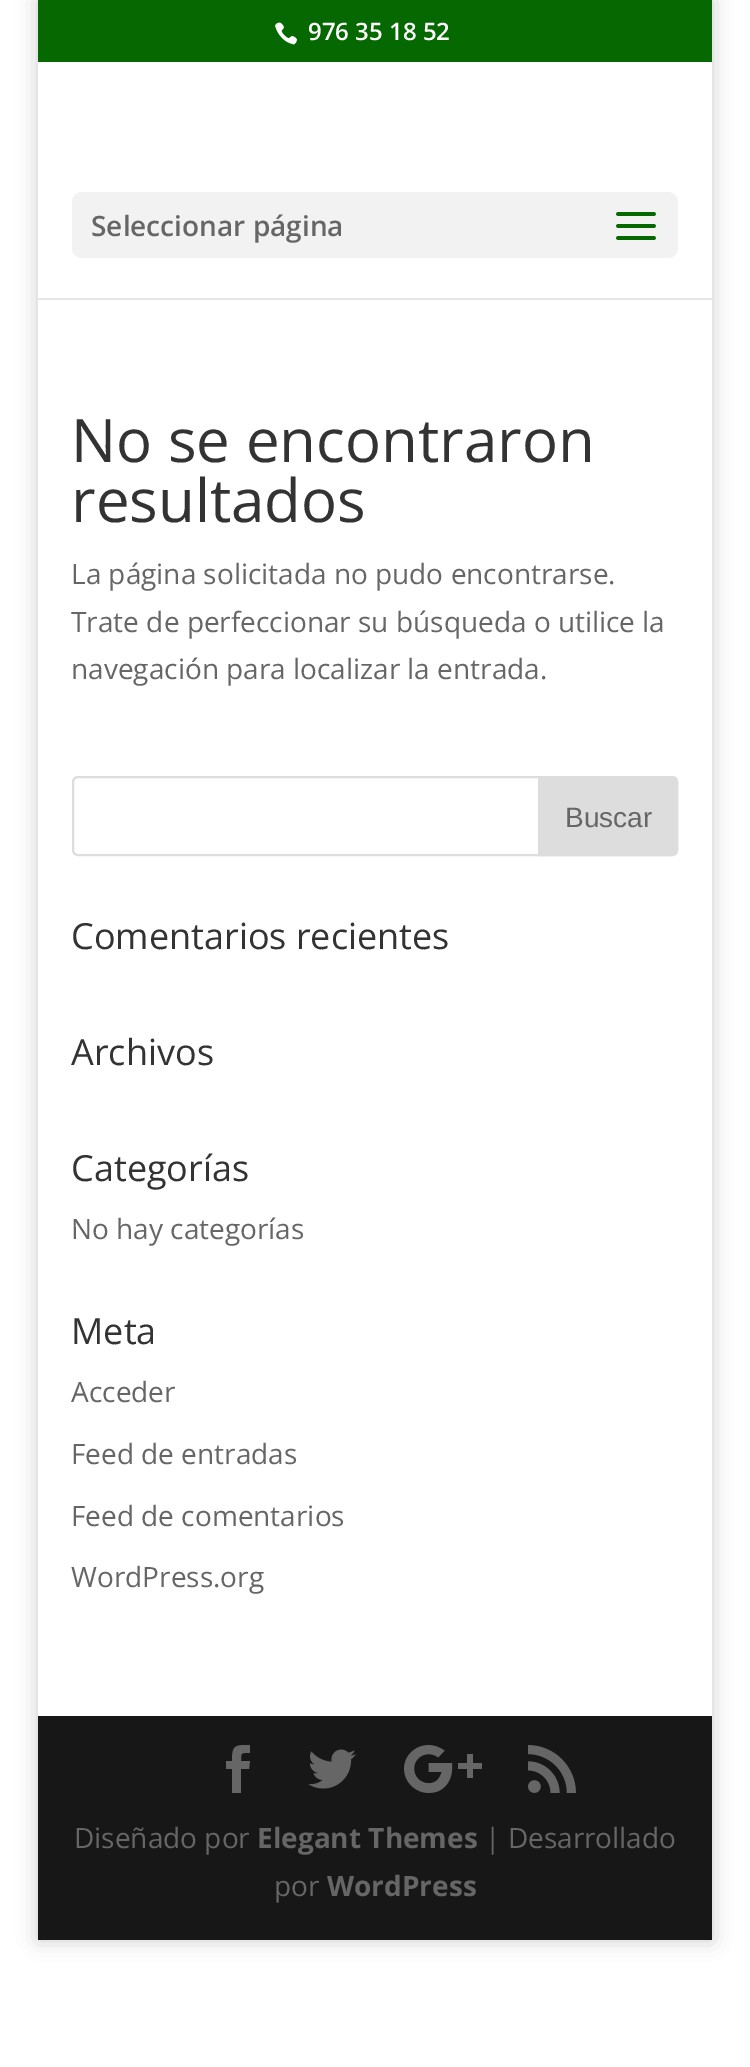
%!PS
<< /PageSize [750 2067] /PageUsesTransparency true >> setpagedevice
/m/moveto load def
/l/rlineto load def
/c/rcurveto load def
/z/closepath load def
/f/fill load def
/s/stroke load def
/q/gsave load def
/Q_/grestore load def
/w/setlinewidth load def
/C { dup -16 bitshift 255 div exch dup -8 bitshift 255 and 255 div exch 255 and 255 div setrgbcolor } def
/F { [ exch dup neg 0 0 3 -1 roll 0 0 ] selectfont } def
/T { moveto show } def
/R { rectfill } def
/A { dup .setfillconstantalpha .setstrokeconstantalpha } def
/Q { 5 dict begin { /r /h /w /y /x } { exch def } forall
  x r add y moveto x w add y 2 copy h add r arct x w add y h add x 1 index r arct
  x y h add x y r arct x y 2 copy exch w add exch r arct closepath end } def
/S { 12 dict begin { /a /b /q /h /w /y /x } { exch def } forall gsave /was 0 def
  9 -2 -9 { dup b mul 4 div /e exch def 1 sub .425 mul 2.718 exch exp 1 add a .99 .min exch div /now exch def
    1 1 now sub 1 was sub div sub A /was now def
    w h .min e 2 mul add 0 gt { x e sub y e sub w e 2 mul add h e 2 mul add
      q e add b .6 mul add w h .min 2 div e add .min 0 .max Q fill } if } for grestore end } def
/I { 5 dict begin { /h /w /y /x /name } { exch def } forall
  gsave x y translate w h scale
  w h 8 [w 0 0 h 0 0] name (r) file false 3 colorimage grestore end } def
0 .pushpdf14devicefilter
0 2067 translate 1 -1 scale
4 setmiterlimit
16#FFFFFF C
0 0 750 2067 R
q
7 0 m 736 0 l 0 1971 l -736 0 l z 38 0 m 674 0 l 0 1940 l -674 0 l z eoclip newpath
16#000000 C
38 0 674 1940 0 10 .2 S
Q_
16#066800 C
38 0 674 62 R
(1.rgb) 275 22 22 23 I
/OpenSans-SemiBold 24 F
16#FFFFFF C
(976 35 18 52) 308 40 T
16#E6E6E6 C
38 298 674 2 R
16#F2F2F2 C
72 192 606 66 10 Q f
/OpenSans-SemiBold 28 F
16#666666 C
(Seleccionar página) 91 236 T
(2.rgb) 616 212 40 28 I
/OpenSans-Regular 60 F
16#333333 C
(No se encontraron) 71 462 T
(resultados) 71 522 T
/OpenSans-Regular 28 F
16#666666 C
(La página solicitada no pudo encontrarse.) 71 584 T
(Trate de perfeccionar su búsqueda o utilice la) 71 632 T
(navegación para localizar la entrada.) 71 679 T
16#DDDDDD C
2 w
73 777 604 78 5 Q s
539 777 m 133 0 l 3 0 5 2 5 5 c 0 68 l 0 3 -2 5 -5 5 c -133 0 l z q f Q_
s
/LiberationSans-Regular 28 F
16#666666 C
(Buscar) 565 827 T
/OpenSans-Regular 36 F
16#333333 C
(Comentarios recientes) 71 949 T
(Archivos) 71 1065 T
(Categorías) 71 1181 T
/OpenSans-Regular 28 F
16#666666 C
(No hay categorías) 71 1239 T
/OpenSans-Regular 36 F
16#333333 C
(Meta) 71 1344 T
/OpenSans-Regular 28 F
16#666666 C
(Acceder) 71 1402 T
(Feed de entradas) 71 1464 T
(Feed de comentarios) 71 1526 T
(WordPress.org) 71 1587 T
16#171717 C
38 1716 674 224 R
16#666666 C
232 1793 m 9 0 l 0 -24 l 8 0 l 1 -8 l -9 0 l 0 -9 0 -8 9 -8 c 0 -8 l -15 0 -18 0 -18 16 c -6 0 l 0 8 l 6 0 l z f
(3.rgb) 308 1749 48 40 I
(4.rgb) 404 1745 78 48 I
(5.rgb) 528 1745 48 48 I
(Diseñado por) 74 1848 T
/OpenSans-Bold 28 F
(Elegant Themes) 257 1848 T
/OpenSans-Regular 28 F
(| Desarrollado) 485 1848 T
(por) 274 1896 T
/OpenSans-Bold 28 F
(WordPress) 327 1896 T
.poppdf14devicefilter showpage
